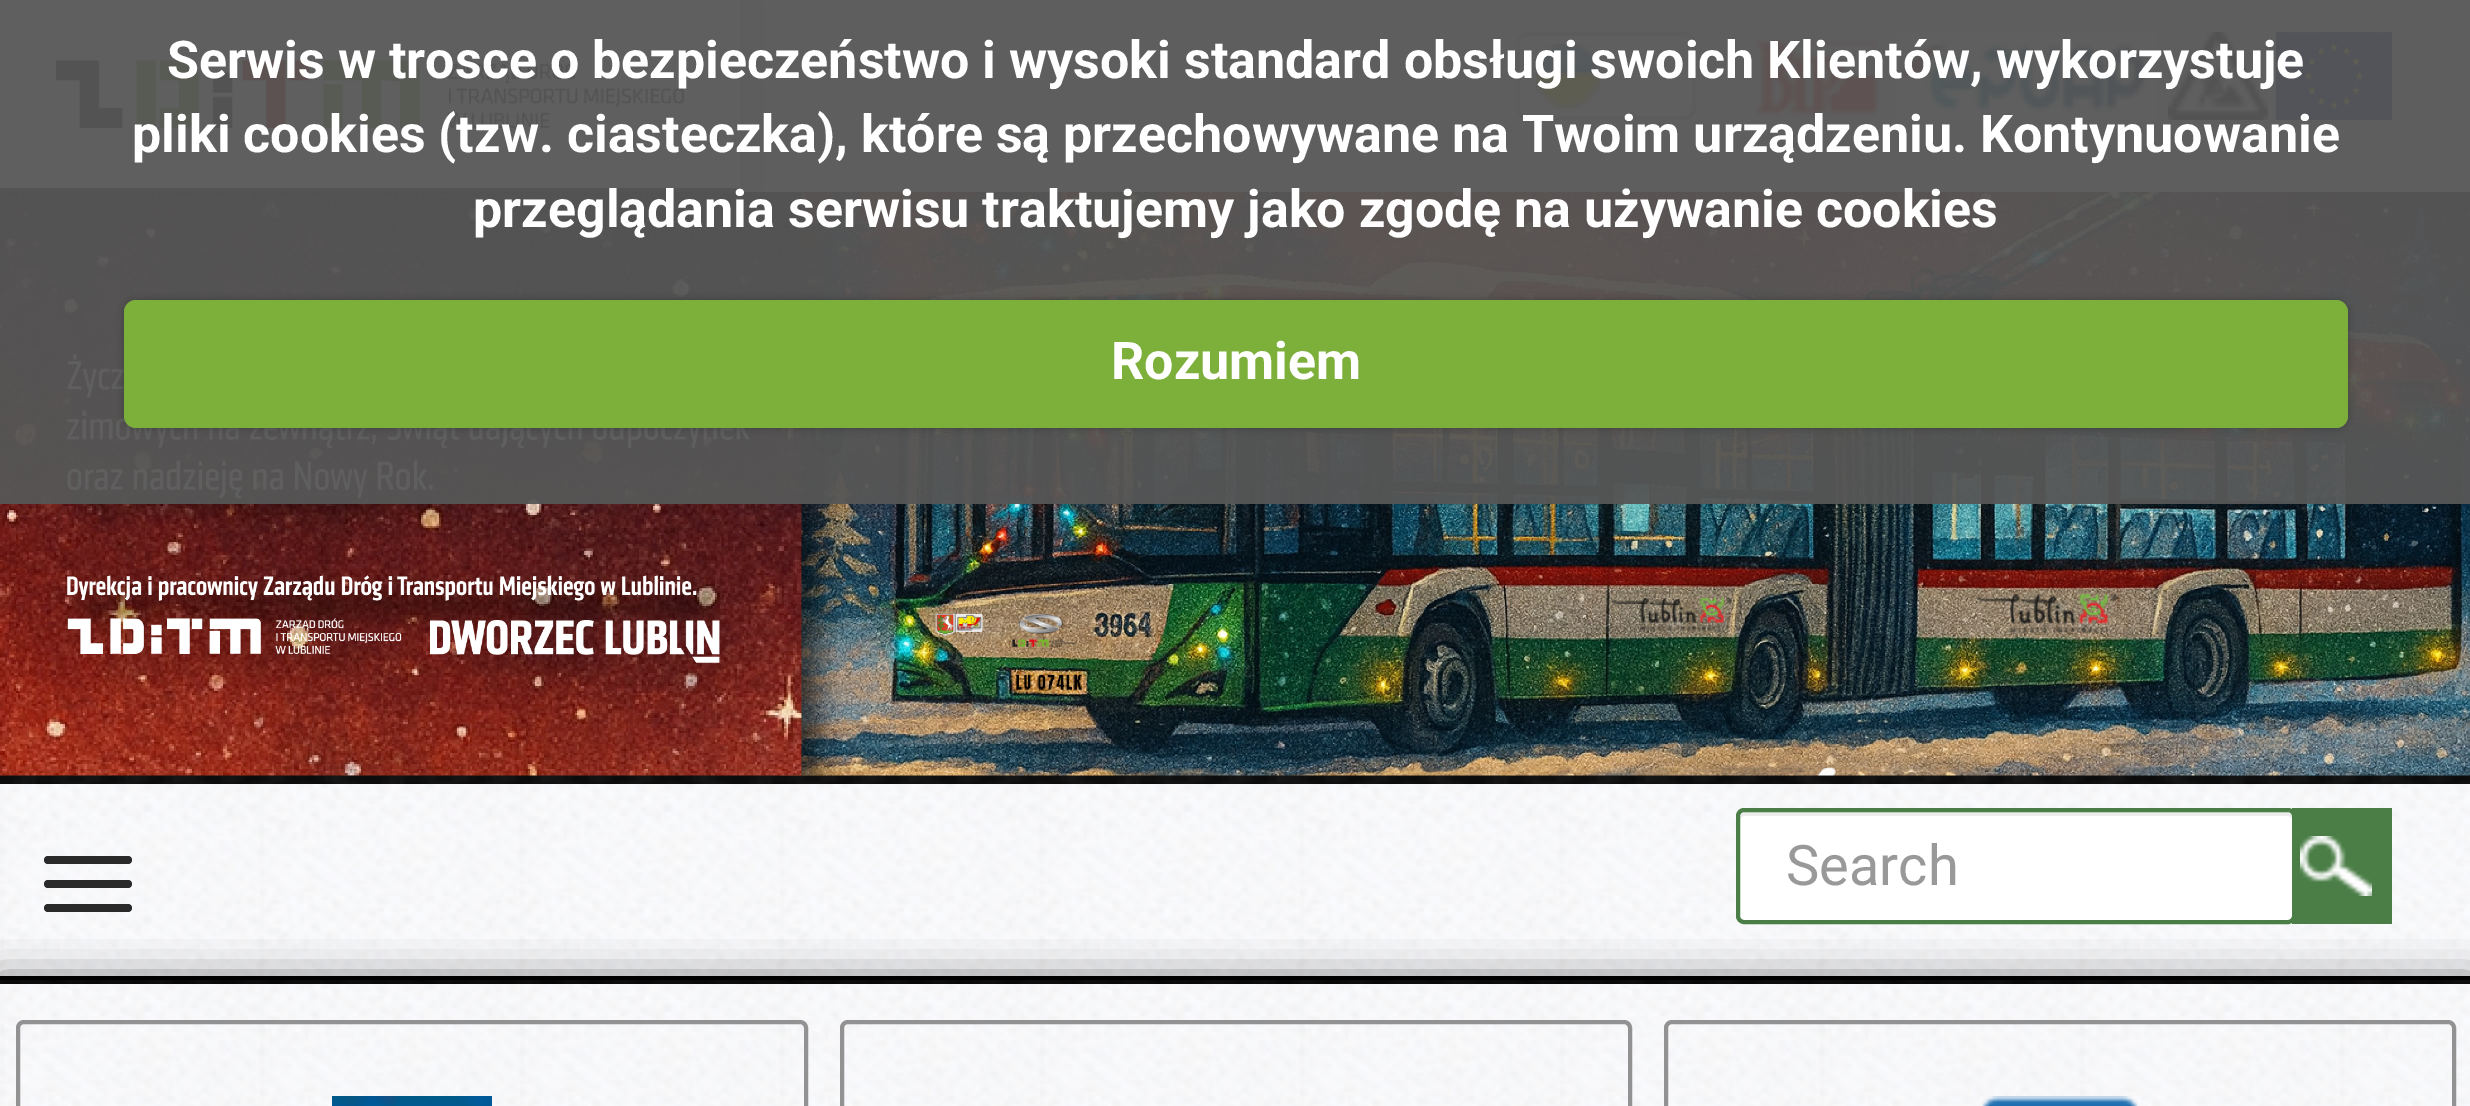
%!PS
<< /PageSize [2470 1106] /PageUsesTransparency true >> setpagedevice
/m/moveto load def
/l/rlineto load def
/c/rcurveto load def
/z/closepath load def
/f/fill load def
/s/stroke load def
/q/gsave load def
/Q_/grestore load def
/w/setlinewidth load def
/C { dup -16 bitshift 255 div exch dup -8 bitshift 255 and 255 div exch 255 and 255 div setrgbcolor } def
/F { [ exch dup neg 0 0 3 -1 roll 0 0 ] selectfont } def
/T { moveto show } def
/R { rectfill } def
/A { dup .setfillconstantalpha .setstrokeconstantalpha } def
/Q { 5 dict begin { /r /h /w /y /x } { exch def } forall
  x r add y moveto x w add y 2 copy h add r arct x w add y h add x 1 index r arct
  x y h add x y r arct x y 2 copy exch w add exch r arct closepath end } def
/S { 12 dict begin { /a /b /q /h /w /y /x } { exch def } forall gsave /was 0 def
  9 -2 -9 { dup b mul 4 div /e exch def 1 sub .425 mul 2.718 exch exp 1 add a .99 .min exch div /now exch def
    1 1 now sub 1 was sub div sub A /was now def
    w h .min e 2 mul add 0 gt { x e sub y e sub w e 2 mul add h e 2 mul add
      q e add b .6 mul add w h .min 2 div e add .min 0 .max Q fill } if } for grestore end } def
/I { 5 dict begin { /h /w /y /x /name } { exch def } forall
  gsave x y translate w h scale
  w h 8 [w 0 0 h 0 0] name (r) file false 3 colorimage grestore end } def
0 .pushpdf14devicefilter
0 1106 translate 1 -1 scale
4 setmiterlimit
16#FFFFFF C
0 0 2470 1106 R
(1.rgb) 0 775 2470 209 I
(2.rgb) 740 0 1730 192 I
(10.rgb) 0 192 2470 584 I
16#000000 C
0 0 740 192 0 20 .4 S
16#FFFFFF C
0 0 740 188 R
16#2A2A2A C
0 188 740 4 R
(3.rgb) 56 60 628 68 I
16#FFFFFF C
1518 34 176 84 10 Q q f Q_
16#CCCCCC C
4 w
s
(4.rgb) 1536 44 64 64 I
(5.rgb) 1755 39 126 79 I
(6.rgb) 1896 32 260 88 I
(7.rgb) 2168 32 100 88 I
(8.rgb) 2276 32 116 88 I
0.95 A
16#565656 C
0 0 2470 504 R
/Roboto-Bold 52 F
1 A
16#FFFFFF C
(Serwis w trosce o bezpieczeństwo i wysoki standard obsługi swoich Klientów, wykorzystuje) 167 78 T
(pliki cookies \(tzw. ciasteczka\), które są przechowywane na Twoim urządzeniu. Kontynuowanie) 132 152 T
(przeglądania serwisu traktujemy jako zgodę na używanie cookies) 473 227 T
16#000000 C
124 300 2224 128 12 4 .25 S
16#7DAF3B C
124 300 2224 128 12 Q f
16#FFFFFF C
(Rozumiem) 1111 379 T
(9.rgb) 0 784 2470 192 I
16#000000 C
0 976 2470 4 R
16#2A2A2A C
44 856 88 8 4 Q f
44 880 88 8 4 Q f
44 904 88 8 4 Q f
16#000000 C
0 984 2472 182 0 20 .7 S
16#FFFFFF C
1736 808 560 116 8 Q f
16#ECECEC C
1744 816 m 544 0 l 2 0 4 2 4 4 c 0 -3 0 -8 -4 -8 c -544 0 l -4 0 -4 5 -4 8 c 0 -2 2 -4 4 -4 c z f
16#4B7E47 C
1738 810 556 112 6 Q s
/Roboto-Regular 56 F
16#999999 C
(Search) 1786 885 T
16#4B7E47 C
2292 808 100 116 R
(11.rgb) 2300 836 72 60 I
(12.rgb) 0 984 2470 122 I
16#929292 C
18 1022 788 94 6 Q s
(13.rgb) 332 1096 160 10 I
842 1022 788 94 6 Q s
1666 1022 788 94 6 Q s
(14.rgb) 1982 1096 158 10 I
.poppdf14devicefilter showpage
